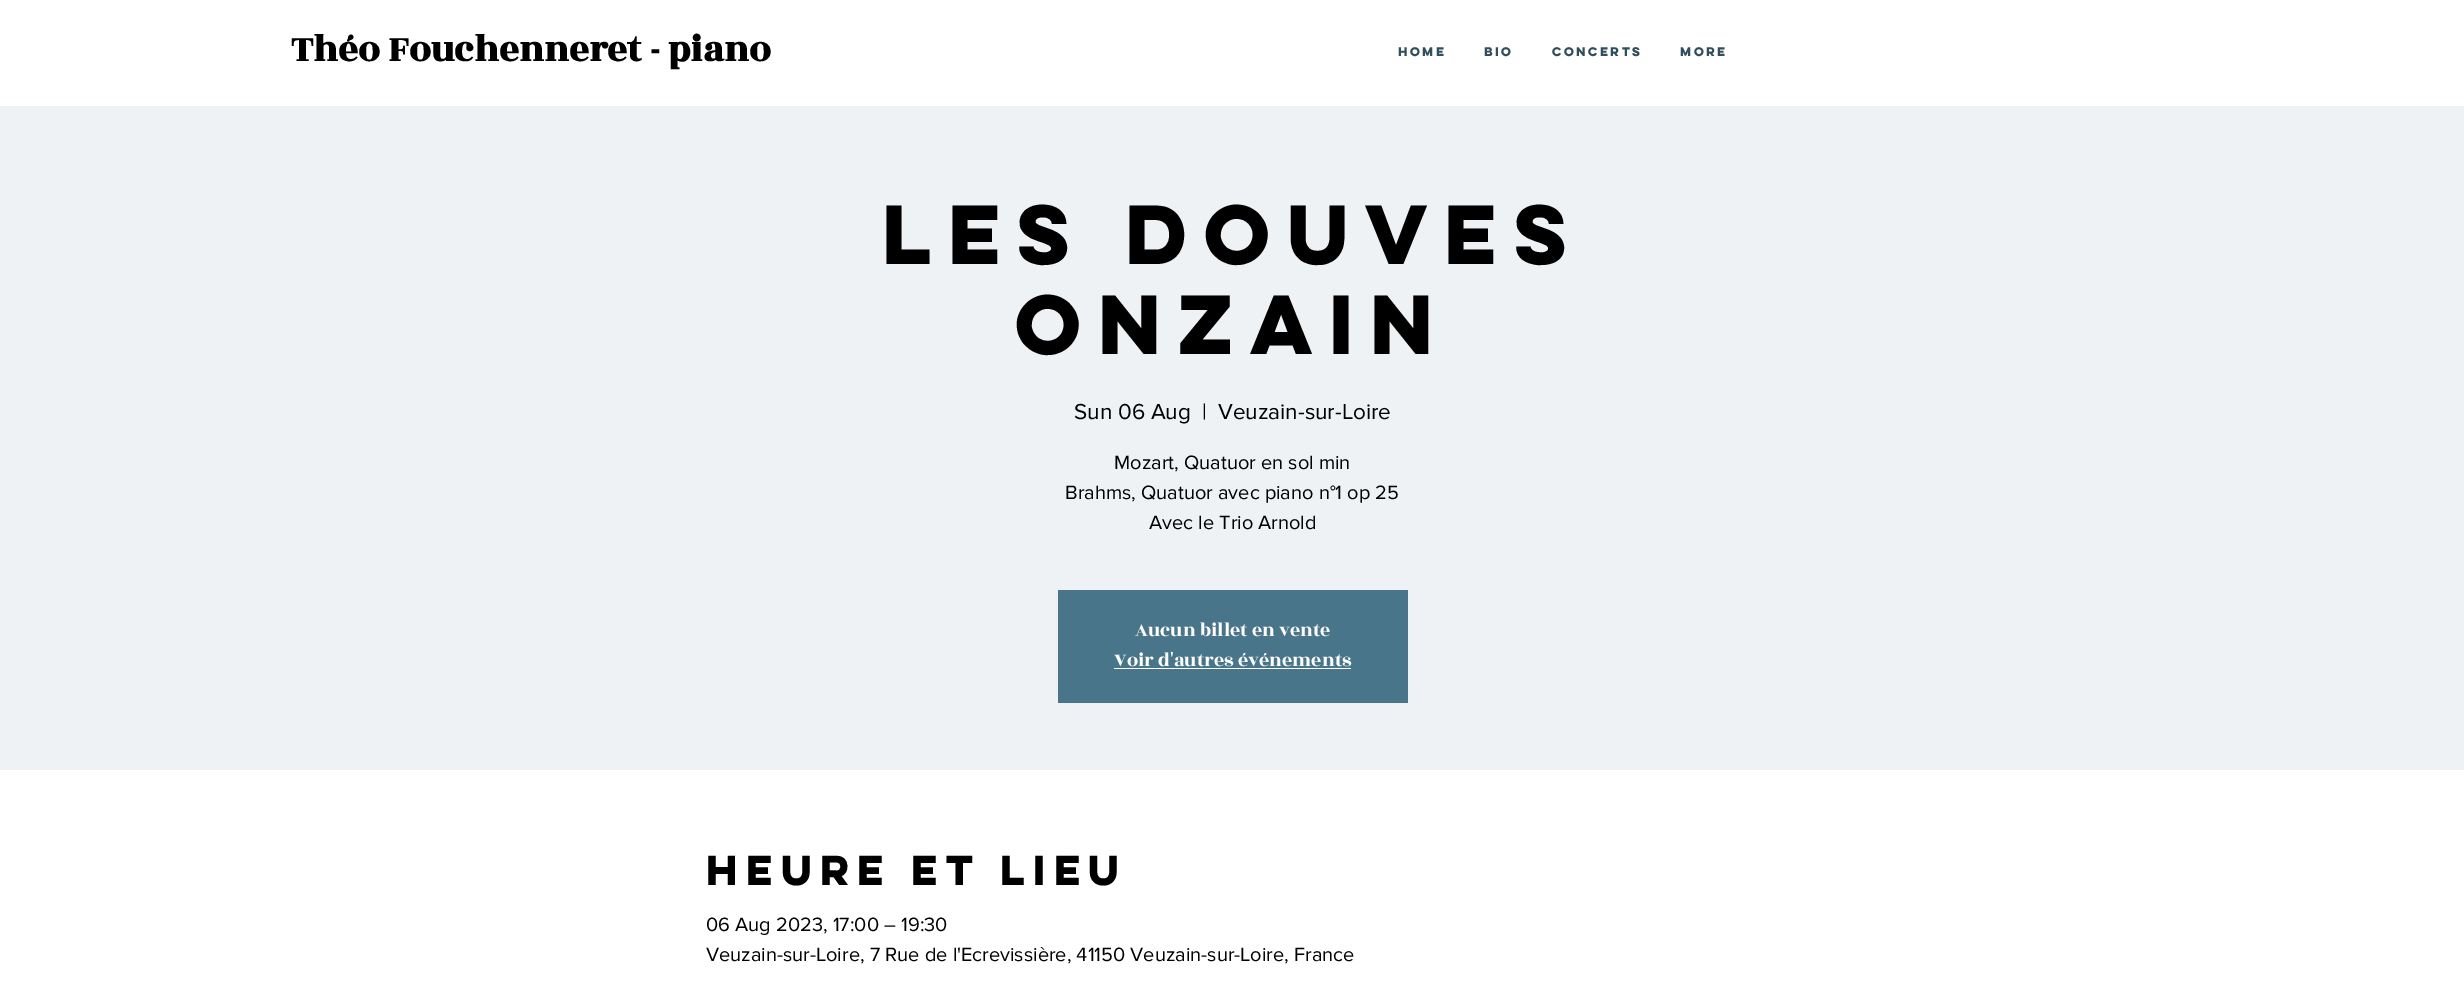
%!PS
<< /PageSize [2464 990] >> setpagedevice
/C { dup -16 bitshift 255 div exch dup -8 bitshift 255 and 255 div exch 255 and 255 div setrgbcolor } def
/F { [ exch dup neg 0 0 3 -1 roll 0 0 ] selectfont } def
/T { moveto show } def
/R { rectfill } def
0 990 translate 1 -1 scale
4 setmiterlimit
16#FFFFFF C
0 0 2464 990 R
/RozhaOne-Bold 38.75 F
16#000000 C
(Théo Fouchenneret - piano) 291 61 T
/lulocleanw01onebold-Bold 11.25 F
16#314E5D C
(Home) 1398 56 T
(Bio) 1484 56 T
(Concerts) 1552 56 T
(More) 1680 56 T
16#EEF2F4 C
0 106 2464 664 R
/lulocleanw01onebold-Bold 75 F
16#000000 C
(Les Douves) 882 264 T
(Onzain) 1015 354 T
/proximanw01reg-Regular 22.5 F
(Sun 06 Aug) 1074 419 T
(|) 1202 419 T
(Veuzain-sur-Loire) 1218 419 T
/proximanw01reg-Regular 20 F
(Mozart, Quatuor en sol min) 1114 469 T
(Brahms, Quatuor avec piano n°1 op 25) 1065 499 T
(Avec le Trio Arnold) 1149 529 T
16#49758B C
1058 590 350 113 R
/RozhaOne-Regular 20 F
16#FFFFFF C
(Aucun billet en vente) 1135 636 T
(Voir d'autres événements) 1114 666 T
1114 668 237 1 R
/lulocleanw01onebold-Bold 37.5 F
16#000000 C
(Heure et lieu) 706 885 T
/proximanw01reg-Regular 20 F
(06 Aug 2023, 17:00 – 19:30) 706 931 T
(Veuzain-sur-Loire, 7 Rue de l'Ecrevissière, 41150 Veuzain-sur-Loire, France) 706 961 T
showpage
